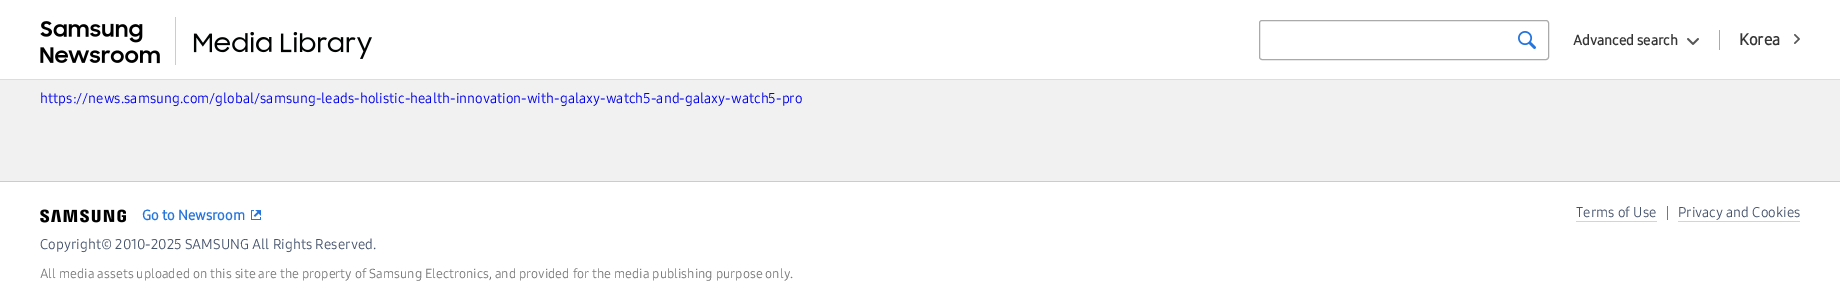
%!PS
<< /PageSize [1840 307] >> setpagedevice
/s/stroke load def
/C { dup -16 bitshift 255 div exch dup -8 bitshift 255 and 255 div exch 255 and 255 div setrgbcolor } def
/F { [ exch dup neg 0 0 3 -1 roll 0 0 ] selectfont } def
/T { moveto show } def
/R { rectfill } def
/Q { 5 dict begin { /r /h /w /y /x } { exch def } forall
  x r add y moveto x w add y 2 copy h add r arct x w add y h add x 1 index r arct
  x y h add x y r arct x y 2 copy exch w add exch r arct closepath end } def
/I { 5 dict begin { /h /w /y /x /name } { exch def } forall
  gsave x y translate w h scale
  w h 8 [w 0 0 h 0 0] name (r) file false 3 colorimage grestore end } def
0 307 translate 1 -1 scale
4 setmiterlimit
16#F1F1F1 C
0 0 1840 307 R
16#FFFFFF C
0 0 1840 79 R
16#DDDDDD C
0 79 1840 1 R
16#CCCCCC C
175 17 1 48 R
(1.rgb) 40 21 120 43 I
(2.rgb) 193 32 179 27 I
16#AAAAAA C
1259.5 20.5 289 39 2.5 Q s
(3.rgb) 1518 31 18 18 I
/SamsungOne-Bold 14 F
16#363636 C
(Advanced search) 1573 45 T
(4.rgb) 1687 38 12 7 I
16#AAAAAA C
1719 30 1 20 R
/SamsungOne-Bold 16 F
16#363636 C
(Korea) 1739 45 T
(5.rgb) 1794 34 6 10 I
/SamsungOne-Regular 14 F
16#0000EE C
(https://news.samsung.com/global/samsung-leads-holistic-health-innovation-with-galaxy-watch5-and-galaxy-watch5-pro) 40 103 T
16#FFFFFF C
0 182 1840 125 R
16#CCCCCC C
0 181 1840 1 R
(6.rgb) 40 209 86 14 I
/SamsungOne-Bold 14 F
16#2575DD C
(Go to Newsroom) 142 220 T
(7.rgb) 251 210 10 10 I
16#787878 C
1667 206 1 14 R
/SamsungOne-Regular 14 F
16#47546E C
(Terms of Use) 1576 217 T
16#D1D4DB C
1576 221 81 1 R
16#47546E C
(Privacy and Cookies) 1678 217 T
16#D1D4DB C
1678 221 122 1 R
16#47546E C
(Copyright© 2010-2025 SAMSUNG All Rights Reserved.) 40 249 T
/SamsungOne-Regular 13 F
16#787878 C
(All media assets uploaded on this site are the property of Samsung Electronics, and provided for the media publishing purpose only.) 40 278 T
showpage
